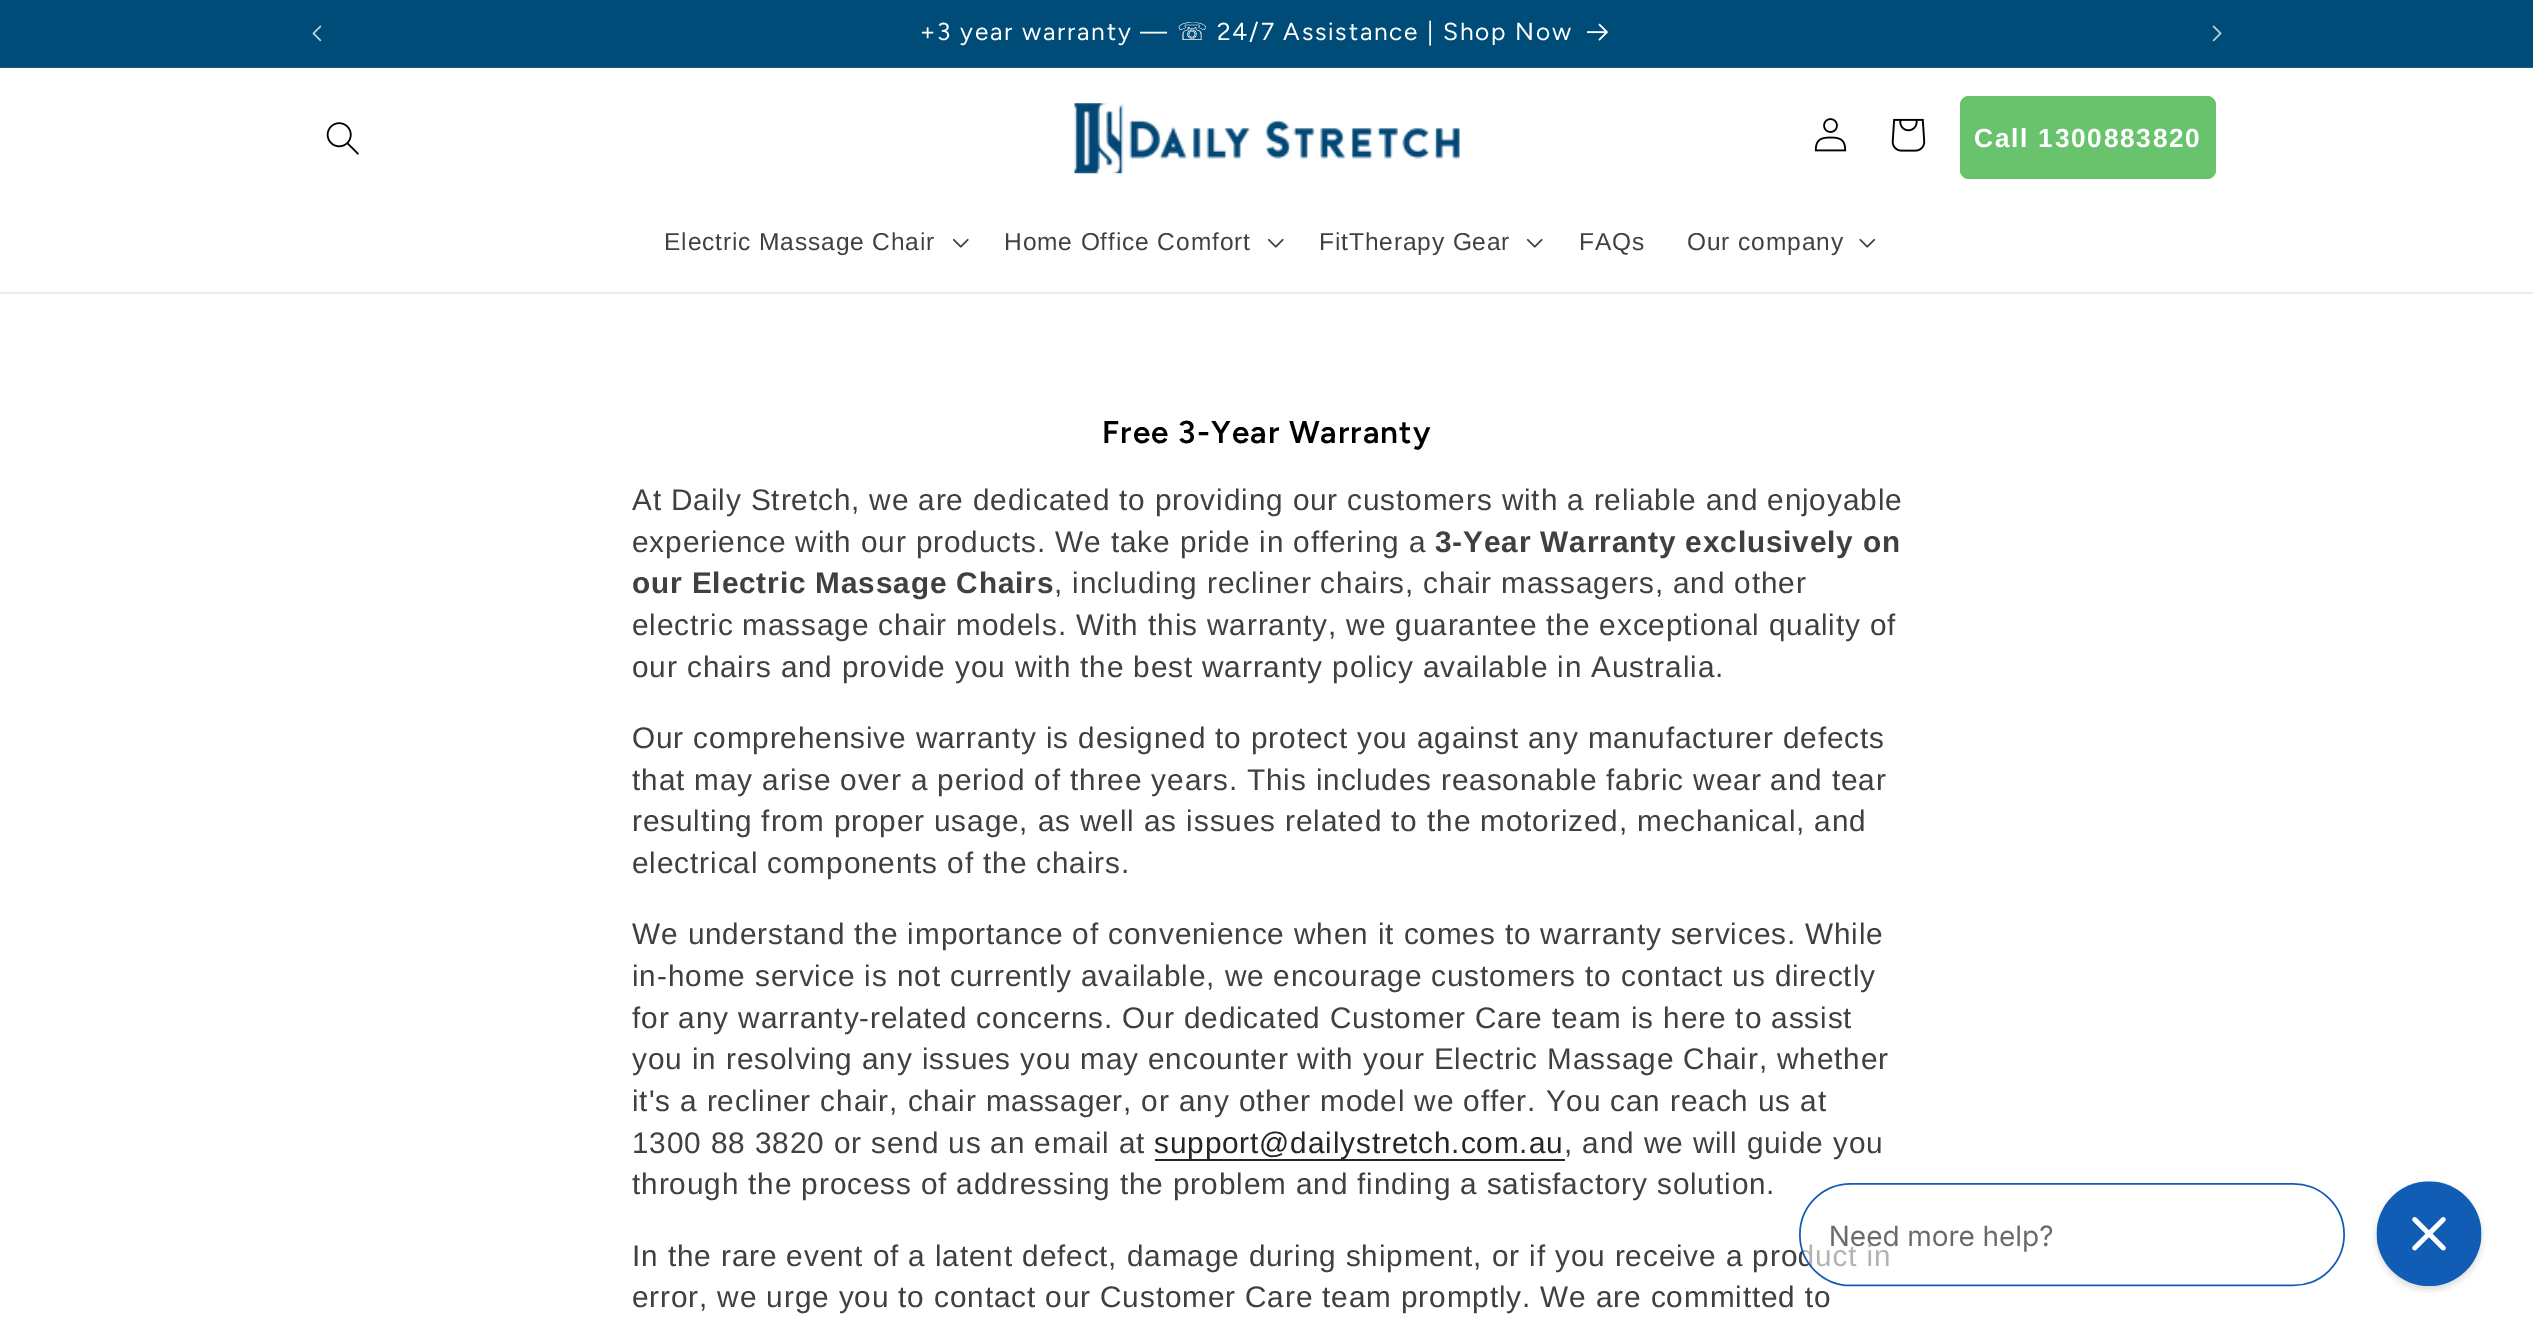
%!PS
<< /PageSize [2533 1332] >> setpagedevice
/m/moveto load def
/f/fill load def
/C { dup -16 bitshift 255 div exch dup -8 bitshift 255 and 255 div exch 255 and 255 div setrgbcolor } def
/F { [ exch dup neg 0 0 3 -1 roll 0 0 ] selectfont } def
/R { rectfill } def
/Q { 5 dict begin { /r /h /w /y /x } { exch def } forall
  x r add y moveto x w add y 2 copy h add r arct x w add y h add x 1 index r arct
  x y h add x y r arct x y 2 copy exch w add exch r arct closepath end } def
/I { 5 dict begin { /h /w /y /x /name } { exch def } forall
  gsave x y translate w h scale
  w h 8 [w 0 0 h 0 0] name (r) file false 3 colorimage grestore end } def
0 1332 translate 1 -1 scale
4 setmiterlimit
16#FFFFFF C
0 0 2533 1332 R
16#004C78 C
0 0 2533 67 R
16#145A83 C
0 67 2533 1 R
(1.rgb) 312 25 10 17 I
/Figtree-Regular 24.5 F
16#FFFFFF C
920 40 m 1.75 0 (+3 year warranty —) ashow
/DejaVuSans-Regular 24.5 F
1177 40 m 1.75 0 (☏) ashow
/Figtree-Regular 24.5 F
1217 40 m 1.75 0 (24/7 Assistance | Shop Now) ashow
(2.rgb) 1587 23 21 18 I
(3.rgb) 2212 25 10 17 I
16#EBEBEB C
0 292 2533 2 R
(4.rgb) 326 122 33 33 I
(5.rgb) 1074 103 386 71 I
(6.rgb) 1814 118 33 34 I
(7.rgb) 1891 118 35 34 I
16#68C36C C
1960 96 256 83 9 Q f
/LiberationSans-Bold 26.25 F
16#FFFFFF C
1974 147 m 1.75 0 (Call 1300883820) ashow
/LiberationSans-Regular 24.5 F
16#404040 C
664 250 m .88 0 (Electric Massage Chair) ashow
(8.rgb) 952 238 17 10 I
1004 250 m .88 0 (Home Office Comfort) ashow
(8.rgb) 1267 238 17 10 I
1319 250 m .88 0 (FitTherapy Gear) ashow
(8.rgb) 1526 238 17 10 I
1579 250 m .88 0 (FAQs) ashow
1687 250 m .88 0 (Our company) ashow
(9.rgb) 1859 238 17 10 I
/Figtree-SemiBold 31.5 F
16#000000 C
1102 443 m 1.05 0 (Free 3-Year Warranty) ashow
/LiberationSans-Regular 29.75 F
16#404040 C
632 510 m .88 0 (At Daily Stretch, we are dedicated to providing our customers with a reliable and enjoyable) ashow
632 552 m .88 0 (experience with our products. We take pride in offering a) ashow
/LiberationSans-Bold 29.75 F
1435 552 m .88 0 (3-Year Warranty exclusively on) ashow
632 593 m .88 0 (our Electric Massage Chairs) ashow
/LiberationSans-Regular 29.75 F
1054 593 m .88 0 (, including recliner chairs, chair massagers, and other) ashow
632 635 m .88 0 (electric massage chair models. With this warranty, we guarantee the exceptional quality of) ashow
632 677 m .88 0 (our chairs and provide you with the best warranty policy available in Australia.) ashow
632 748 m .88 0 (Our comprehensive warranty is designed to protect you against any manufacturer defects) ashow
632 790 m .88 0 (that may arise over a period of three years. This includes reasonable fabric wear and tear) ashow
632 831 m .88 0 (resulting from proper usage, as well as issues related to the motorized, mechanical, and) ashow
632 873 m .88 0 (electrical components of the chairs.) ashow
632 944 m .88 0 (We understand the importance of convenience when it comes to warranty services. While) ashow
632 986 m .88 0 (in-home service is not currently available, we encourage customers to contact us directly) ashow
632 1028 m .88 0 (for any warranty-related concerns. Our dedicated Customer Care team is here to assist) ashow
632 1069 m .88 0 (you in resolving any issues you may encounter with your Electric Massage Chair, whether) ashow
632 1111 m .88 0 (it's a recliner chair, chair massager, or any other model we offer. You can reach us at) ashow
632 1153 m .88 0 (1300 88 3820 or send us an email at) ashow
16#262626 C
1155 1159 410 2 R
1154 1153 m .88 0 (support@dailystretch.com.au) ashow
16#404040 C
1564 1153 m .88 0 (, and we will guide you) ashow
632 1194 m .88 0 (through the process of addressing the problem and finding a satisfactory solution.) ashow
632 1266 m .88 0 (In the rare event of a latent defect, damage during shipment, or if you receive a product in) ashow
632 1307 m .88 0 (error, we urge you to contact our Customer Care team promptly. We are committed to) ashow
(10.rgb) 1799 1181 686 112 I
showpage
